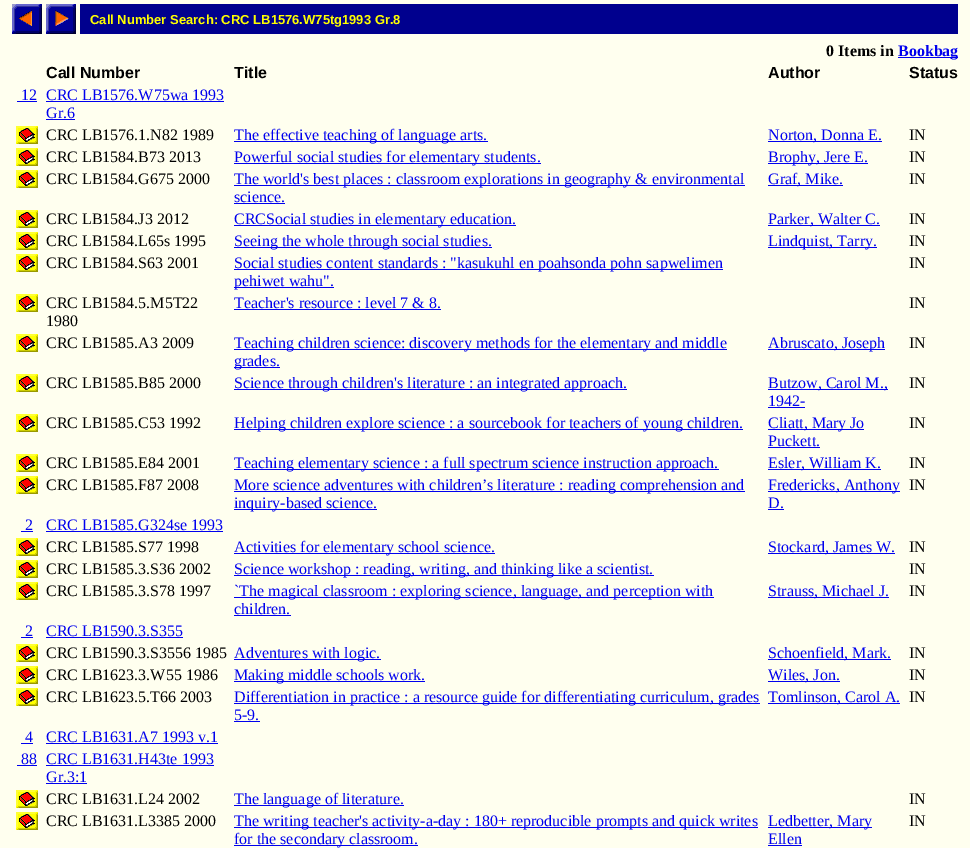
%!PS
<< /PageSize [970 848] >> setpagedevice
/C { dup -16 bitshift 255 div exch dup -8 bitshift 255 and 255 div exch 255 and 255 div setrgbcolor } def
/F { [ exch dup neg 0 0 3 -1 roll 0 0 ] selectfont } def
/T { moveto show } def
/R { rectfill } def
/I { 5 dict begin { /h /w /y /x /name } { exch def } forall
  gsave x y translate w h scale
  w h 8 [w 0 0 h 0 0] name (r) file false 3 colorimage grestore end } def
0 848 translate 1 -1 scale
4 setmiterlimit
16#FFFFEF C
0 0 970 848 R
(1.rgb) 12 4 30 30 I
(2.rgb) 46 4 30 30 I
16#00008E C
80 4 878 30 R
/LiberationSans-Bold 13 F
16#FFFF00 C
(Call Number Search: CRC LB1576.W75tg1993 Gr.8) 90 24 T
/LiberationSerif-Bold 16 F
16#000000 C
(0 Items in) 826 56 T
16#0000EE C
898 57 60 1 R
(Bookbag) 898 56 T
/LiberationSans-Bold 16 F
16#000000 C
(Call Number) 46 78 T
(Title) 234 78 T
(Author) 768 78 T
(Status) 909 78 T
/LiberationSerif-Regular 16 F
16#0000EE C
(12) 21 100 T
17 101 20 1 R
(CRC LB1576.W75wa 1993) 46 100 T
46 101 178 1 R
(Gr.6) 46 118 T
46 119 29 1 R
(3.rgb) 16 126 22 18 I
16#000000 C
(CRC LB1576.1.N82 1989) 46 140 T
16#0000EE C
234 141 254 1 R
(The effective teaching of language arts.) 234 140 T
768 141 114 1 R
(Norton, Donna E.) 768 140 T
16#000000 C
(IN) 909 140 T
(3.rgb) 16 148 22 18 I
(CRC LB1584.B73 2013) 46 162 T
16#0000EE C
234 163 307 1 R
(Powerful social studies for elementary students.) 234 162 T
768 163 100 1 R
(Brophy, Jere E.) 768 162 T
16#000000 C
(IN) 909 162 T
(3.rgb) 16 170 22 18 I
(CRC LB1584.G675 2000) 46 184 T
16#0000EE C
234 185 511 1 R
(The world's best places : classroom explorations in geography & environmental) 234 184 T
(science.) 234 202 T
234 203 51 1 R
768 185 75 1 R
(Graf, Mike.) 768 184 T
16#000000 C
(IN) 909 184 T
(3.rgb) 16 210 22 18 I
(CRC LB1584.J3 2012) 46 224 T
16#0000EE C
234 225 282 1 R
(CRCSocial studies in elementary education.) 234 224 T
768 225 112 1 R
(Parker, Walter C.) 768 224 T
16#000000 C
(IN) 909 224 T
(3.rgb) 16 232 22 18 I
(CRC LB1584.L65s 1995) 46 246 T
16#0000EE C
234 247 258 1 R
(Seeing the whole through social studies.) 234 246 T
768 247 109 1 R
(Lindquist, Tarry.) 768 246 T
16#000000 C
(IN) 909 246 T
(3.rgb) 16 254 22 18 I
(CRC LB1584.S63 2001) 46 268 T
16#0000EE C
234 269 489 1 R
(Social studies content standards : "kasukuhl en poahsonda pohn sapwelimen) 234 268 T
234 287 100 1 R
(pehiwet wahu".) 234 286 T
16#000000 C
(IN) 909 268 T
(3.rgb) 16 294 22 18 I
(CRC LB1584.5.M5T22) 46 308 T
(1980) 46 326 T
16#0000EE C
(Teacher's resource : level 7 & 8.) 234 308 T
234 309 207 1 R
16#000000 C
(IN) 909 308 T
(3.rgb) 16 334 22 18 I
(CRC LB1585.A3 2009) 46 348 T
16#0000EE C
234 349 493 1 R
(Teaching children science: discovery methods for the elementary and middle) 234 348 T
234 367 46 1 R
(grades.) 234 366 T
768 349 117 1 R
(Abruscato, Joseph) 768 348 T
16#000000 C
(IN) 909 348 T
(3.rgb) 16 374 22 18 I
(CRC LB1585.B85 2000) 46 388 T
16#0000EE C
234 389 393 1 R
(Science through children's literature : an integrated approach.) 234 388 T
768 389 120 1 R
(Butzow, Carol M.,) 768 388 T
(1942-) 768 406 T
768 407 37 1 R
16#000000 C
(IN) 909 388 T
(3.rgb) 16 414 22 18 I
(CRC LB1585.C53 1992) 46 428 T
16#0000EE C
234 429 509 1 R
(Helping children explore science : a sourcebook for teachers of young children.) 234 428 T
768 429 96 1 R
(Cliatt, Mary Jo) 768 428 T
(Puckett.) 768 446 T
768 447 52 1 R
16#000000 C
(IN) 909 428 T
(3.rgb) 16 454 22 18 I
(CRC LB1585.E84 2001) 46 468 T
16#0000EE C
234 469 485 1 R
(Teaching elementary science : a full spectrum science instruction approach.) 234 468 T
768 469 113 1 R
(Esler, William K.) 768 468 T
16#000000 C
(IN) 909 468 T
(3.rgb) 16 476 22 18 I
(CRC LB1585.F87 2008) 46 490 T
16#0000EE C
234 491 511 1 R
(More science adventures with children’s literature : reading comprehension and) 234 490 T
234 509 143 1 R
(inquiry-based science.) 234 508 T
768 491 132 1 R
(Fredericks, Anthony) 768 490 T
(D.) 768 508 T
768 509 16 1 R
16#000000 C
(IN) 909 490 T
16#0000EE C
(2) 25 530 T
21 531 12 1 R
(CRC LB1585.G324se 1993) 46 530 T
46 531 177 1 R
(3.rgb) 16 538 22 18 I
16#000000 C
(CRC LB1585.S77 1998) 46 552 T
16#0000EE C
234 553 261 1 R
(Activities for elementary school science.) 234 552 T
768 553 127 1 R
(Stockard, James W.) 768 552 T
16#000000 C
(IN) 909 552 T
(3.rgb) 16 560 22 18 I
(CRC LB1585.3.S36 2002) 46 574 T
16#0000EE C
234 575 420 1 R
(Science workshop : reading, writing, and thinking like a scientist.) 234 574 T
16#000000 C
(IN) 909 574 T
(3.rgb) 16 582 22 18 I
(CRC LB1585.3.S78 1997) 46 596 T
16#0000EE C
234 597 480 1 R
(`The magical classroom : exploring science, language, and perception with) 234 596 T
(children.) 234 614 T
234 615 57 1 R
768 597 121 1 R
(Strauss, Michael J.) 768 596 T
16#000000 C
(IN) 909 596 T
16#0000EE C
(2) 25 636 T
21 637 12 1 R
(CRC LB1590.3.S355) 46 636 T
46 637 137 1 R
(3.rgb) 16 644 22 18 I
16#000000 C
(CRC LB1590.3.S3556 1985) 46 658 T
16#0000EE C
234 659 147 1 R
(Adventures with logic.) 234 658 T
768 659 123 1 R
(Schoenfield, Mark.) 768 658 T
16#000000 C
(IN) 909 658 T
(3.rgb) 16 666 22 18 I
(CRC LB1623.3.W55 1986) 46 680 T
16#0000EE C
234 681 191 1 R
(Making middle schools work.) 234 680 T
768 681 72 1 R
(Wiles, Jon.) 768 680 T
16#000000 C
(IN) 909 680 T
(3.rgb) 16 688 22 18 I
(CRC LB1623.5.T66 2003) 46 702 T
16#0000EE C
234 703 526 1 R
(Differentiation in practice : a resource guide for differentiating curriculum, grades) 234 702 T
(5-9.) 234 720 T
234 721 26 1 R
768 703 132 1 R
(Tomlinson, Carol A.) 768 702 T
16#000000 C
(IN) 909 702 T
16#0000EE C
(4) 25 742 T
21 743 12 1 R
(CRC LB1631.A7 1993 v.1) 46 742 T
46 743 172 1 R
(88) 21 764 T
17 765 20 1 R
(CRC LB1631.H43te 1993) 46 764 T
46 765 168 1 R
(Gr.3:1) 46 782 T
46 783 41 1 R
(3.rgb) 16 790 22 18 I
16#000000 C
(CRC LB1631.L24 2002) 46 804 T
16#0000EE C
234 805 170 1 R
(The language of literature.) 234 804 T
16#000000 C
(IN) 909 804 T
(3.rgb) 16 812 22 18 I
(CRC LB1631.L3385 2000) 46 826 T
16#0000EE C
234 827 524 1 R
(The writing teacher's activity-a-day : 180+ reproducible prompts and quick writes) 234 826 T
234 845 184 1 R
(for the secondary classroom.) 234 844 T
768 827 104 1 R
(Ledbetter, Mary) 768 826 T
(Ellen) 768 844 T
768 845 34 1 R
16#000000 C
(IN) 909 826 T
showpage
